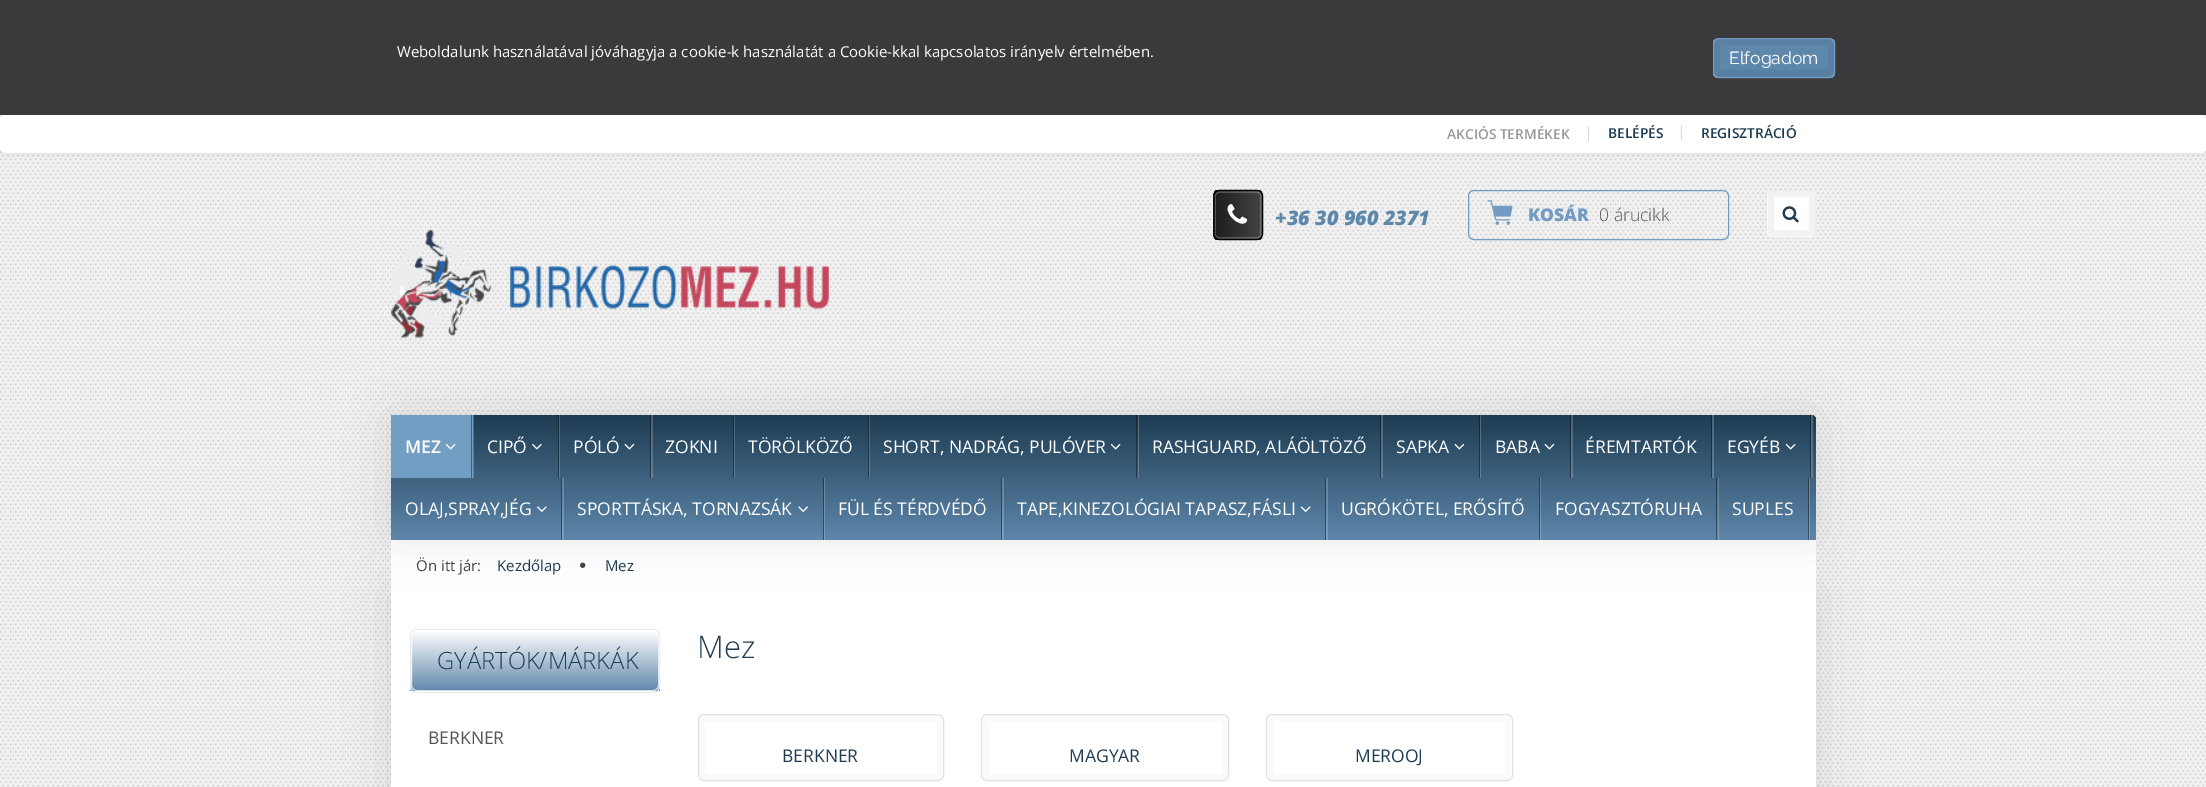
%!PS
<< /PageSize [2206 787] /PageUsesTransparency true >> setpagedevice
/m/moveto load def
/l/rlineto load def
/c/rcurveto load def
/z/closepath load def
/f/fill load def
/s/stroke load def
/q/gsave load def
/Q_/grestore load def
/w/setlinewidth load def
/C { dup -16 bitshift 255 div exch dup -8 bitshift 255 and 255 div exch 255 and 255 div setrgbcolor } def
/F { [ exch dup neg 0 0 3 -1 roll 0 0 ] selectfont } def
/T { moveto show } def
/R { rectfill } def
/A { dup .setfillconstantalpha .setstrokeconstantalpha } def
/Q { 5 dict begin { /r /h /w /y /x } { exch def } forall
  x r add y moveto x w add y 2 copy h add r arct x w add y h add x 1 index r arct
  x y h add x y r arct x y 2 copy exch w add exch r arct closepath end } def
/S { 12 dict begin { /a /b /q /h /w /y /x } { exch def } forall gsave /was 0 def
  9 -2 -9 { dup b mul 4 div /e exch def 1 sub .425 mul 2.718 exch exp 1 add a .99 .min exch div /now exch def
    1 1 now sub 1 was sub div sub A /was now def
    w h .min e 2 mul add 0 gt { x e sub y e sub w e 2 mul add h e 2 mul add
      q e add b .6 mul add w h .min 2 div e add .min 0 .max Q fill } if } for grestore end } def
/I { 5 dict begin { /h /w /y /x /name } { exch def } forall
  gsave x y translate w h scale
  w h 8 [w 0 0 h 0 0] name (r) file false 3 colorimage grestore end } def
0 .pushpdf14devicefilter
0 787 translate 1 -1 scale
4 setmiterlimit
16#FFFFFF C
0 0 2206 787 R
(1.rgb) 0 115 2206 672 I
16#000000 C
0 115 2206 38 5 3 .1 S
16#3A393B C
0 0 2206 115 R
/OpenSans-Regular 15 F
16#FFFFFF C
(Weboldalunk használatával jóváhagyja a cookie-k használatát a Cookie-kkal kapcsolatos irányelv értelmében.) 397 57 T
q
1713 38 122 40 6 Q clip newpath
q 1713 39 m 122 0 l 0 37 l -122 0 l z clip newpath
<< /ShadingType 2 /ColorSpace /DeviceRGB /Coords [1774 39 1774 76] /Extend [true true] /Function << /FunctionType 2 /Domain [0 1] /C0 [.376 .529 .671] /C1 [.361 .529 .671] /N 1 >> >> shfill Q_
q 1713 76 m 122 0 l 0 2 l -122 0 l z clip newpath
<< /ShadingType 2 /ColorSpace /DeviceRGB /Coords [1774 76 1774 114] /Extend [true true] /Function << /FunctionType 2 /Domain [0 1] /C0 [.376 .529 .671] /C1 [.361 .529 .671] /N 1 >> >> shfill Q_
Q_
0.05 A
16#000000 C
6 w
1717 42 114 31 rectstroke
1 A
16#729CC4 C
1 w
1713.5 38.5 121 39 5.5 Q s
/Raleway-Regular 17.5 F
16#FFFFFF C
(Elfogadom) 1729 64 T
0 115 2206 38 5 Q f
/OpenSans-SemiBold 13.75 F
16#999999 C
(AKCIÓS TERMÉKEK) 1447 139 T
16#D9D9D9 C
1588 126 1 15 R
16#1E3C52 C
(BELÉPÉS) 1608 138 T
16#D9D9D9 C
1681 125 1 15 R
16#1E3C52 C
(REGISZTRÁCIÓ) 1701 138 T
q 1262 193 m 0 44 l -1 2 -3 3 -5 3 c -38 0 l -2 0 -4 -1 -5 -3 c 0 -44 l 1 -2 3 -3 5 -3 c 38 0 l 2 0 4 1 5 3 c z clip newpath
<< /ShadingType 2 /ColorSpace /DeviceRGB /Coords [1262 215 1214 215] /Extend [true true] /Function << /FunctionType 2 /Domain [0 1] /C0 [.267 .267 .267] /C1 [.11 .11 .11] /N 1 >> >> shfill Q_
q 1214 193 m 0 44 l -1 -3 l 0 -38 l z clip newpath
<< /ShadingType 2 /ColorSpace /DeviceRGB /Coords [1214 215 1167 215] /Extend [true true] /Function << /FunctionType 2 /Domain [0 1] /C0 [.267 .267 .267] /C1 [.11 .11 .11] /N 1 >> >> shfill Q_
0.3 A
16#FFFFFF C
1.2 w
1261 196 m 0 38 l 0 2 -1.5 4 -4 4 c -37.5 0 l -2.5 0 -4.5 -2 -4.5 -4 c 0 -38 l 0 -2 2 -4 4.5 -4 c 37.5 0 l 2.5 0 4 2 4 4 c z s
1 A
16#000000 C
1262.5 196 m 0 38 l 0 3 -2.5 5.5 -5.5 5.5 c -37.5 0 l -3 0 -5.5 -2.5 -5.5 -5.5 c 0 -38 l 0 -3 2.5 -5.5 5.5 -5.5 c 37.5 0 l 3 0 5.5 2.5 5.5 5.5 c z s
(2.rgb) 1227 204 21 20 I
/OpenSans-ExtraBoldItalic 20 F
16#5E88AB C
(+36 30 960 2371) 1275 225 T
16#729CC4 C
1 w
1468.5 190.5 260 49 5.5 Q s
(3.rgb) 1487 200 26 25 I
/OpenSans-ExtraBold 17.5 F
(KOSÁR) 1528 221 T
/OpenSans-Light 17.5 F
16#555555 C
(0 árucikk) 1599 221 T
16#FFFFFF C
1766 190 50 48 5 Q f
16#F2F2F2 C
6 w
1771 194 41 39 1 Q s
16#EBEBEB C
1 w
1766.5 190.5 49 47 4.5 Q s
(4.rgb) 1782 206 17 17 I
(5.rgb) 391 229 438 109 I
16#000000 C
391 591 1425 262 0 22 .1 S
16#FFFFFF C
391 540 1425 247 R
(13.rgb) 580 562 6 6 I
16#000000 C
391 415 1425 125 6 22 .1 S
q 397 415 m 1413 0 l 3.5 0 6 2.5 6 6 c 0 119 l -1425 0 l 0 -119 l 0 -3.5 2.5 -6 6 -6 c z clip newpath
<< /ShadingType 2 /ColorSpace /DeviceRGB /Coords [1104 415 1104 540] /Extend [true true] /Function << /FunctionType 2 /Domain [0 1] /C0 [.118 .235 .322] /C1 [.369 .529 .671] /N 1 >> >> shfill Q_
0.2 A
16#FFFFFF C
393 478 m 81 0 l 0 -63 l -2 0 l 0 63 l z f
1 A
16#729EC4 C
391 415 82 63 R
16#445F76 C
471 415 1 63 R
/OpenSans-SemiBold 17.5 F
16#FFFFFF C
(MEZ) 405 453 T
(6.rgb) 445 443 11 7 I
0.2 A
474 478 m 86 0 l 0 -63 l -1 0 l 0 63 l z f
0.4 A
16#000000 C
558 415 1 63 R
/OpenSans-Regular 17.5 F
1 A
16#FFFFFF C
(CIPŐ) 487 453 T
(7.rgb) 532 443 10 7 I
0.2 A
560 478 m 93 0 l 0 -63 l -2 0 l 0 63 l z f
0.4 A
16#000000 C
650 415 1 63 R
1 A
16#FFFFFF C
(PÓLÓ) 573 453 T
(8.rgb) 624 443 11 7 I
0.2 A
653 478 m 82 0 l 0 -63 l -1 0 l 0 63 l z f
0.4 A
16#000000 C
733 415 1 63 R
1 A
16#FFFFFF C
(ZOKNI) 665 453 T
0.2 A
735 478 m 135 0 l 0 -63 l -1 0 l 0 63 l z f
0.4 A
16#000000 C
868 415 1 63 R
1 A
16#FFFFFF C
(TÖRÖLKÖZŐ) 748 453 T
0.2 A
870 478 m 269 0 l 0 -63 l -1 0 l 0 63 l z f
0.4 A
16#000000 C
1136 415 1 63 R
1 A
16#FFFFFF C
(SHORT, NADRÁG, PULÓVER) 883 453 T
(9.rgb) 1110 443 11 7 I
0.2 A
1139 478 m 244 0 l 0 -63 l -2 0 l 0 63 l z f
0.4 A
16#000000 C
1380 415 1 63 R
1 A
16#FFFFFF C
(RASHGUARD, ALÁÖLTÖZŐ) 1152 453 T
0.2 A
1383 478 m 98 0 l 0 -63 l -1 0 l 0 63 l z f
0.4 A
16#000000 C
1479 415 1 63 R
1 A
16#FFFFFF C
(SAPKA) 1396 453 T
(8.rgb) 1454 443 11 7 I
0.2 A
1481 478 m 92 0 l 0 -63 l -2 0 l 0 63 l z f
0.4 A
16#000000 C
1570 415 1 63 R
1 A
16#FFFFFF C
(BABA) 1495 453 T
(8.rgb) 1544 443 11 7 I
0.2 A
1573 478 m 141 0 l 0 -63 l -2 0 l 0 63 l z f
0.4 A
16#000000 C
1711 415 1 63 R
1 A
16#FFFFFF C
(ÉREMTARTÓK) 1585 453 T
0.2 A
1714 478 m 99 0 l 0 -63 l -2 0 l 0 63 l z f
0.4 A
16#000000 C
1810 415 1 63 R
1 A
16#FFFFFF C
(EGYÉB) 1727 453 T
(9.rgb) 1785 443 11 7 I
0.2 A
562 478 2 62 R
0.4 A
16#000000 C
561 478 1 62 R
1 A
16#FFFFFF C
(OLAJ,SPRAY,JÉG) 405 515 T
(10.rgb) 537 506 10 6 I
0.2 A
824 478 1 62 R
0.4 A
16#000000 C
823 478 1 62 R
1 A
16#FFFFFF C
(SPORTTÁSKA, TORNAZSÁK) 577 515 T
(11.rgb) 798 506 10 6 I
0.2 A
1002 478 2 62 R
0.4 A
16#000000 C
1001 478 1 62 R
1 A
16#FFFFFF C
(FÜL ÉS TÉRDVÉDŐ) 838 515 T
0.2 A
1326 478 2 62 R
0.4 A
16#000000 C
1325 478 1 62 R
1 A
16#FFFFFF C
(TAPE,KINEZOLÓGIAI TAPASZ,FÁSLI) 1017 515 T
(12.rgb) 1300 506 11 6 I
0.2 A
1540 478 1 62 R
0.4 A
16#000000 C
1539 478 1 62 R
1 A
16#FFFFFF C
(UGRÓKÖTEL, ERŐSÍTŐ) 1341 515 T
0.2 A
1718 478 1 62 R
0.4 A
16#000000 C
1716 478 1 62 R
1 A
16#FFFFFF C
(FOGYASZTÓRUHA) 1555 515 T
0.2 A
1809 478 1 62 R
0.4 A
16#000000 C
1808 478 1 62 R
1 A
16#FFFFFF C
(SUPLES) 1732 515 T
/OpenSans-Regular 15 F
16#444444 C
(Ön itt jár:) 416 571 T
16#1E3C52 C
(Kezdőlap) 497 571 T
(Mez) 605 571 T
q
410 629 250 64 6 Q clip newpath
q 410 630 m 250 0 l 0 61 l -250 0 l z clip newpath
<< /ShadingType 2 /ColorSpace /DeviceRGB /Coords [535 630 535 691] /Extend [true true] /Function << /FunctionType 2 /Domain [0 1] /C0 [1 1 1] /C1 [.376 .533 .671] /N 1 >> >> shfill Q_
q 410 691 m 250 0 l 0 2 l -250 0 l z clip newpath
<< /ShadingType 2 /ColorSpace /DeviceRGB /Coords [535 691 535 753] /Extend [true true] /Function << /FunctionType 2 /Domain [0 1] /C0 [1 1 1] /C1 [.376 .533 .671] /N 1 >> >> shfill Q_
Q_
16#EBEBEB C
410.5 629.5 249 63 5.5 Q s
0.7 A
16#FFFFFF C
411.5 630.5 247 60 5.5 Q s
/OpenSans-Light 23.75 F
1 A
16#1E3C52 C
(GYÁRTÓK/MÁRKÁK) 437 669 T
/OpenSans-Regular 17.5 F
16#555555 C
(BERKNER) 428 744 T
/OpenSans-Light 31 F
16#1E3C52 C
(Mez) 697 658 T
16#FAFAFA C
6 w
702 718 238 59 2 Q s
16#E2E2E2 C
1 w
698.5 714.5 245 66 5.5 Q s
/OpenSans-Regular 17.5 F
16#1E3C52 C
(BERKNER) 782 762 T
16#FAFAFA C
6 w
986 718 239 59 2 Q s
16#E2E2E2 C
1 w
981.5 714.5 247 66 5.5 Q s
16#1E3C52 C
(MAGYAR) 1069 762 T
16#FAFAFA C
6 w
1271 718 237 59 2 Q s
16#E2E2E2 C
1 w
1266.5 714.5 246 66 5.5 Q s
16#1E3C52 C
(MEROOJ) 1355 762 T
.poppdf14devicefilter showpage
